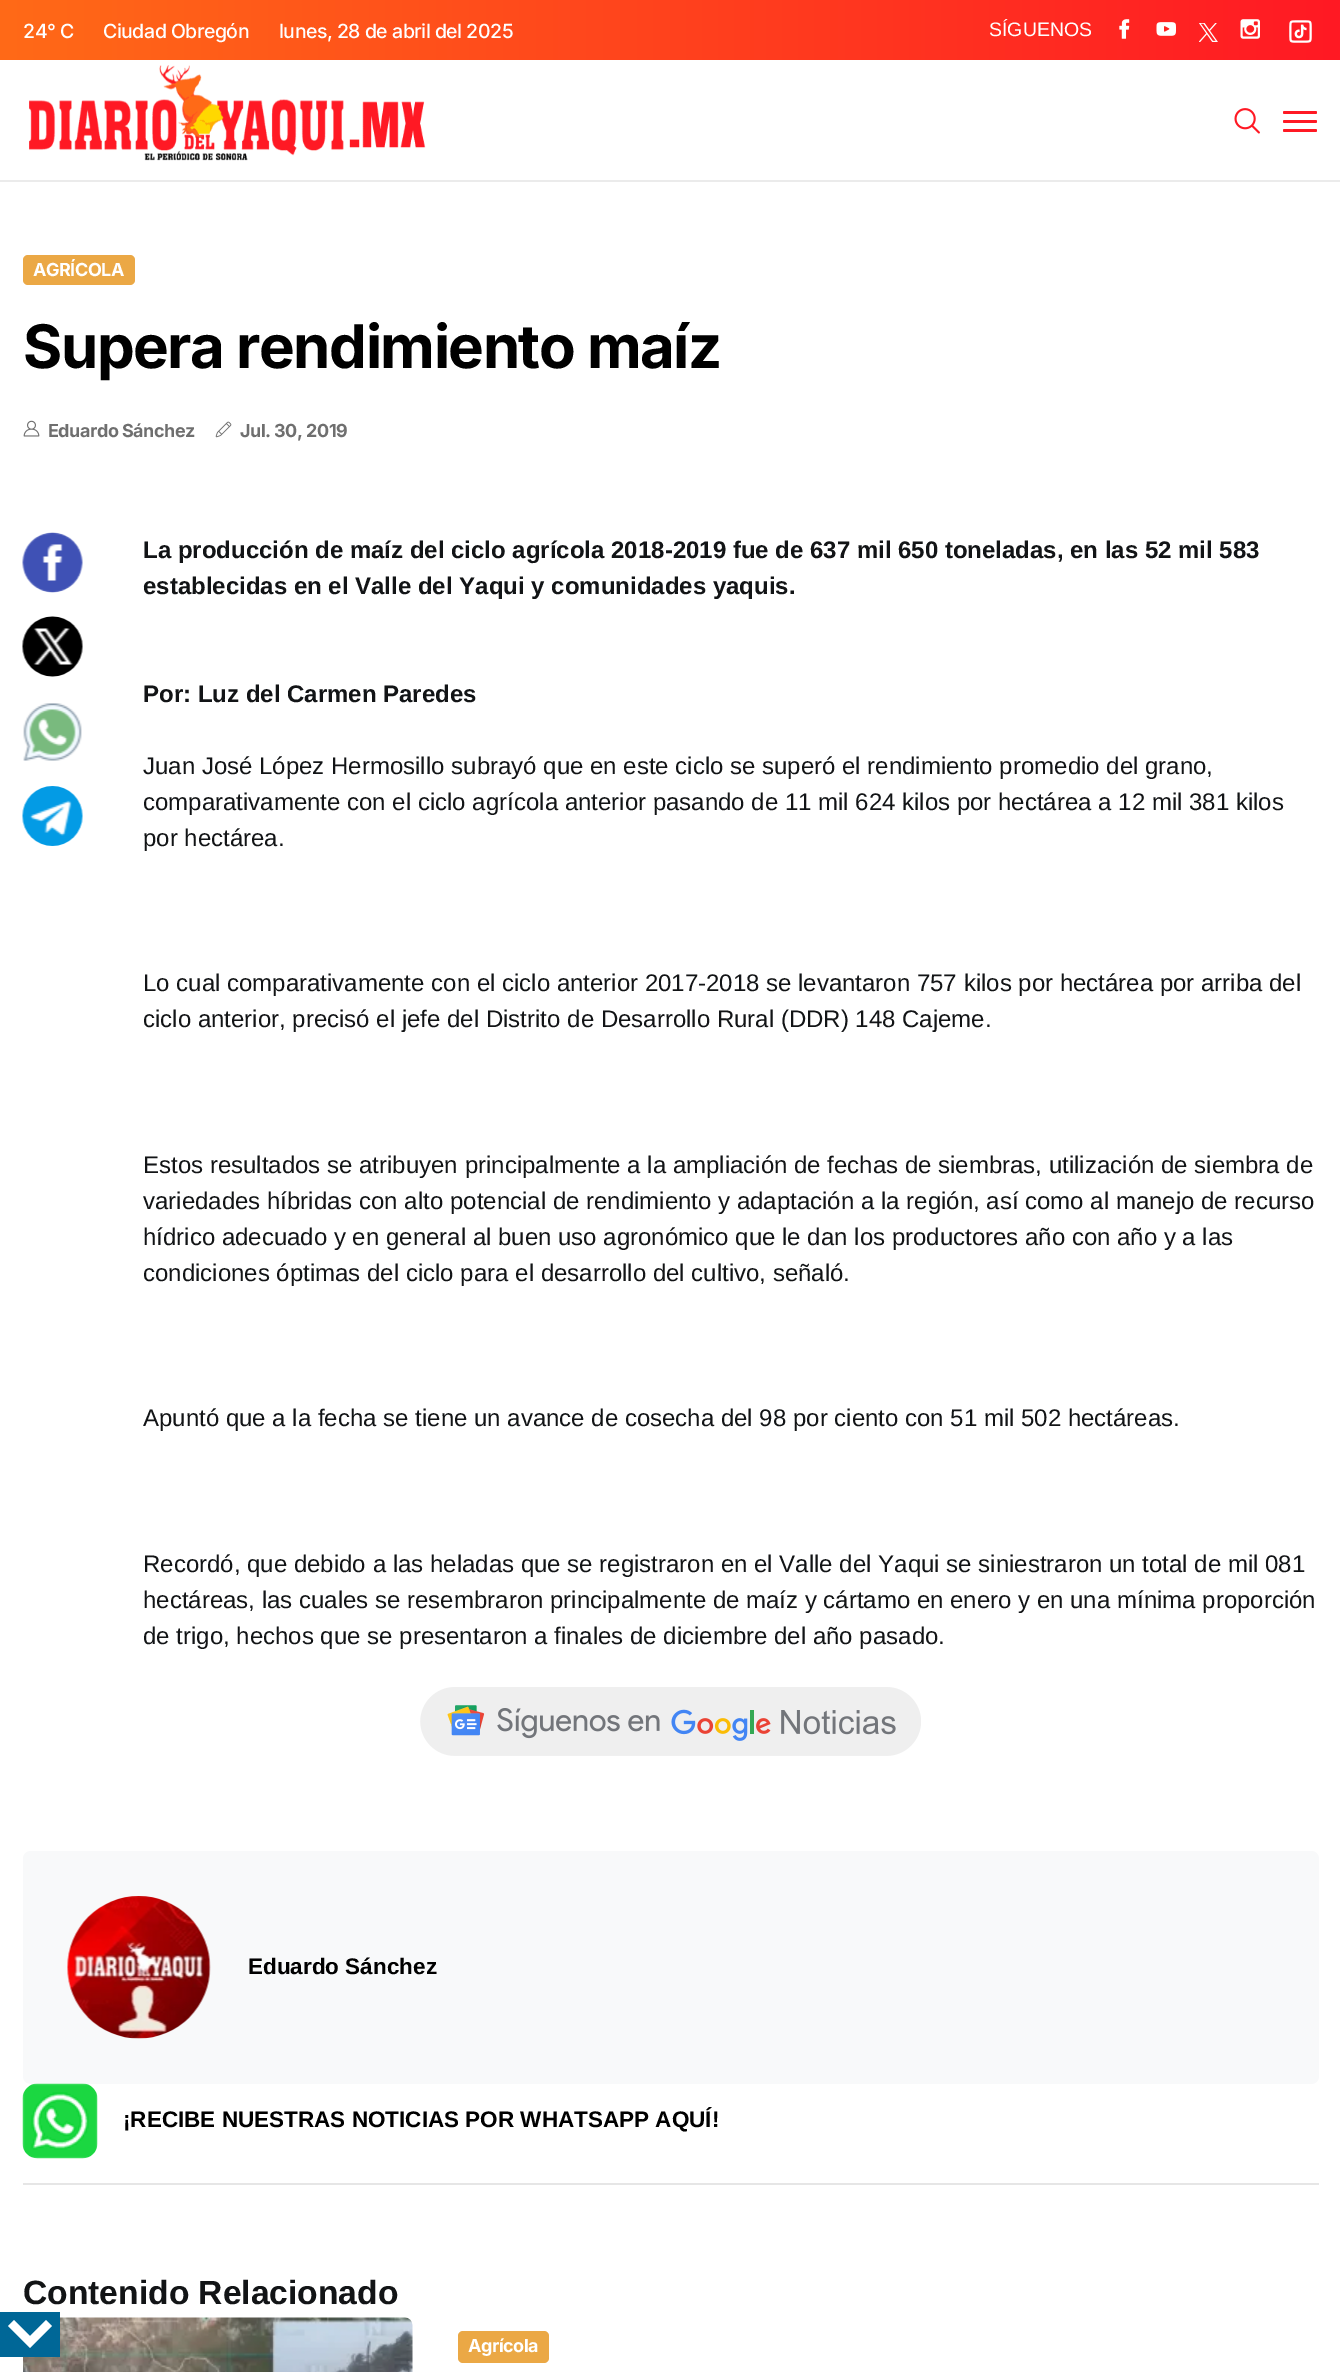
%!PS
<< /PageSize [1340 2372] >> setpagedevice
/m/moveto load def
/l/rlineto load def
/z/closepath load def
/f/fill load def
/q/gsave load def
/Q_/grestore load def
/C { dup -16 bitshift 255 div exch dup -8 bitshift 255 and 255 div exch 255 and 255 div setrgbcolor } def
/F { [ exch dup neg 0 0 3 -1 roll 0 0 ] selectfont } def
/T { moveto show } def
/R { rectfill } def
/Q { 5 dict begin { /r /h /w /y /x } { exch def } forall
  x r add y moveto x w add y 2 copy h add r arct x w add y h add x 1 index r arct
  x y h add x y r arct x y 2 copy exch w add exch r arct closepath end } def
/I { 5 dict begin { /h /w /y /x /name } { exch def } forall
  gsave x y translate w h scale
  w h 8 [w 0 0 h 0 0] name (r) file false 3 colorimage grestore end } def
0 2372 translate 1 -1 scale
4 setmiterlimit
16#FFFFFF C
0 0 1340 2372 R
q 0 0 m 1340 0 l 0 60 l -1340 0 l z clip newpath
<< /ShadingType 2 /ColorSpace /DeviceRGB /Coords [0 30 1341 30] /Extend [true true] /Function << /FunctionType 2 /Domain [0 1] /C0 [1 .416 .09] /C1 [1 .098 .141] /N 1 >> >> shfill Q_
/Inter-Medium 19.5 F
23 38 m -.5 0 (24° C) ashow
103 38 m -.5 0 (Ciudad Obregón) ashow
279 38 m -.5 0 (lunes, 28 de abril del 2025) ashow
/Arimo-Regular 19.5 F
(SÍGUENOS) 989 36 T
(1.rgb) 1119 19 11 20 I
(2.rgb) 1156 22 20 14 I
(3.rgb) 1199 23 19 19 I
(4.rgb) 1240 19 20 20 I
(5.rgb) 1289 20 23 23 I
16#EBEBEB C
0 180 1340 2 R
(6.rgb) 29 65 397 96 I
(7.rgb) 1234 108 26 26 I
16#FF1924 C
1283 111 34 3 1.5 Q f
1283 120 34 3 1.5 Q f
1283 129 34 3 1.5 Q f
16#EBA845 C
23 255 112 30 5 Q f
/Inter-Bold 18 F
16#FFFFFF C
33 276 m -.5 0 (AGRÍCOLA) ashow
/Inter-Bold 60 F
16#000000 C
23 368 m -1.5 0 (Supera rendimiento maíz) ashow
(8.rgb) 23 420 17 17 I
/Inter-Bold 18 F
16#6F6F6F C
48 437 m -.5 0 (Eduardo Sánchez) ashow
(9.rgb) 215 421 17 17 I
240 437 m -.5 0 (Jul. 30, 2019) ashow
(10.rgb) 22 532 61 61 I
(11.rgb) 22 616 61 61 I
(12.rgb) 23 703 59 58 I
(13.rgb) 22 786 61 60 I
/Arimo-Bold 24 F
16#121416 C
(La producción de maíz del ciclo agrícola 2018-2019 fue de 637 mil 650 toneladas, en las 52 mil 583) 143 558 T
(establecidas en el Valle del Yaqui y comunidades yaquis.) 143 594 T
(Por: Luz del Carmen Paredes) 143 702 T
/Arimo-Regular 24 F
(Juan José López Hermosillo subrayó que en este ciclo se superó el rendimiento promedio del grano,) 143 774 T
(comparativamente con el ciclo agrícola anterior pasando de 11 mil 624 kilos por hectárea a 12 mil 381 kilos) 143 810 T
(por hectárea.) 143 846 T
(Lo cual comparativamente con el ciclo anterior 2017-2018 se levantaron 757 kilos por hectárea por arriba del) 143 991 T
(ciclo anterior, precisó el jefe del Distrito de Desarrollo Rural \(DDR\) 148 Cajeme.) 143 1027 T
(Estos resultados se atribuyen principalmente a la ampliación de fechas de siembras, utilización de siembra de) 143 1173 T
(variedades híbridas con alto potencial de rendimiento y adaptación a la región, así como al manejo de recurso) 143 1209 T
(hídrico adecuado y en general al buen uso agronómico que le dan los productores año con año y a las) 143 1245 T
(condiciones óptimas del ciclo para el desarrollo del cultivo, señaló.) 143 1281 T
(Apuntó que a la fecha se tiene un avance de cosecha del 98 por ciento con 51 mil 502 hectáreas.) 143 1426 T
(Recordó, que debido a las heladas que se registraron en el Valle del Yaqui se siniestraron un total de mil 081) 143 1572 T
(hectáreas, las cuales se resembraron principalmente de maíz y cártamo en enero y en una mínima proporción) 143 1608 T
(de trigo, hechos que se presentaron a finales de diciembre del año pasado.) 143 1644 T
(14.rgb) 420 1687 501 69 I
16#F8F9FA C
23 1851 1296 233 8 Q f
(15.rgb) 67 1896 144 143 I
/Arimo-Bold 22.5 F
16#000000 C
(Eduardo Sánchez) 248 1974 T
(16.rgb) 22 2083 76 76 I
(¡RECIBE NUESTRAS NOTICIAS POR WHATSAPP AQUÍ!) 123 2127 T
16#E6E6E6 C
23 2183 1296 2 R
/Arimo-Bold 33.6 F
16#121416 C
(Contenido Relacionado) 23 2304 T
(17.rgb) 23 2317 390 55 I
16#EBA845 C
458 2331 91 32 5 Q f
/Inter-Bold 18 F
16#FFFFFF C
468 2352 m -.5 0 (Agrícola) ashow
16#006797 C
0 2312 60 45 R
16#FFFFFF C
52 2326 m -6 -6 l -16 16 l -16 -16 l -6 6 l 22 22 l z f
showpage
